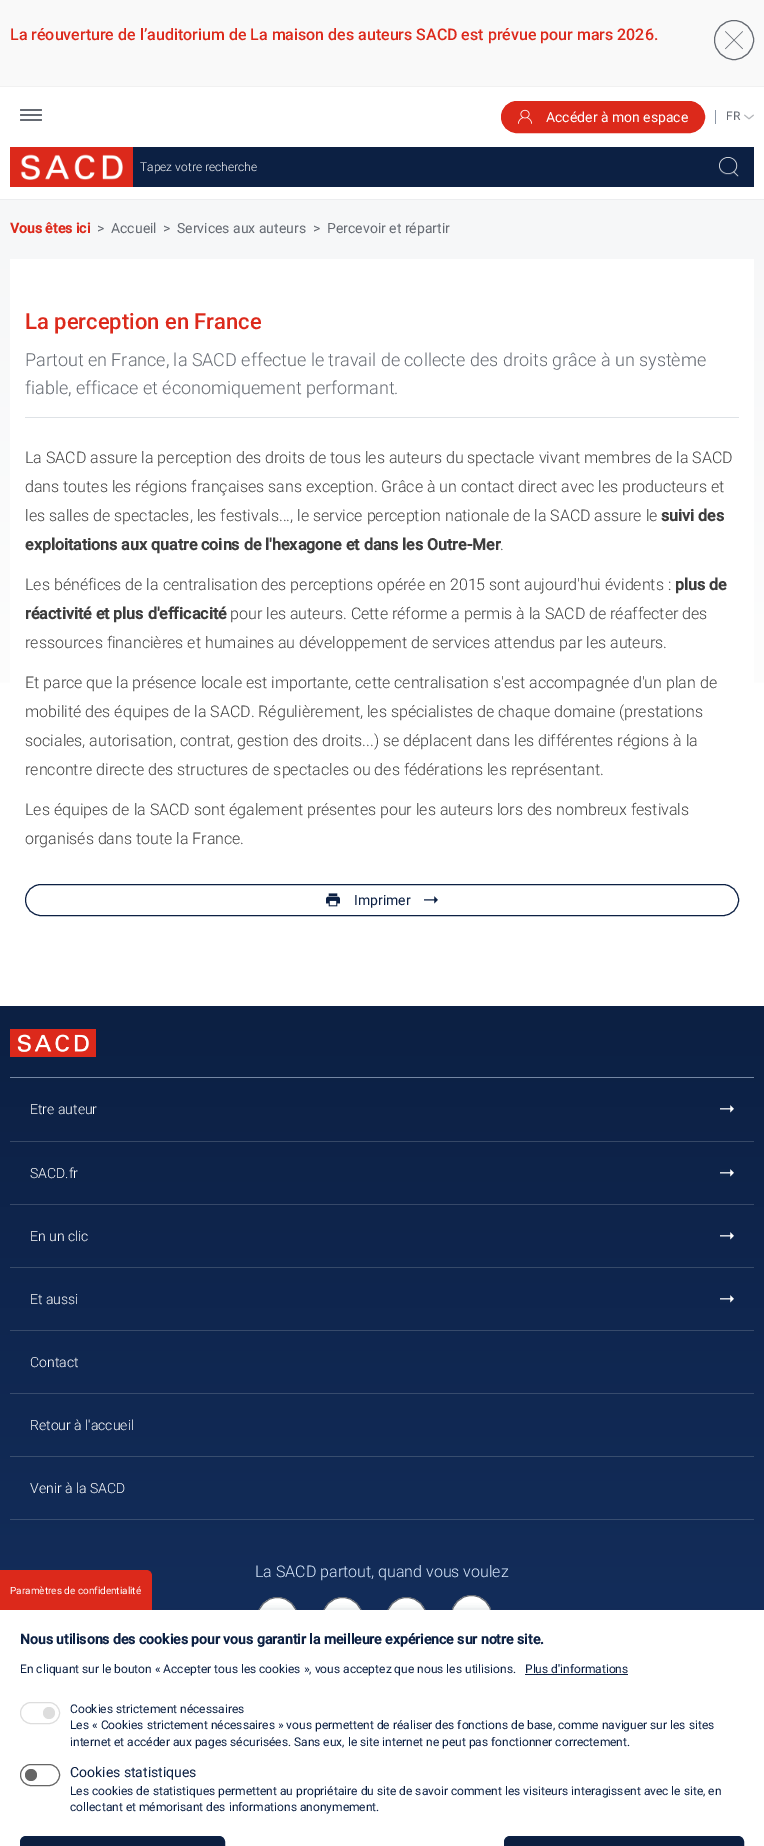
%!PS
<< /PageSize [764 1846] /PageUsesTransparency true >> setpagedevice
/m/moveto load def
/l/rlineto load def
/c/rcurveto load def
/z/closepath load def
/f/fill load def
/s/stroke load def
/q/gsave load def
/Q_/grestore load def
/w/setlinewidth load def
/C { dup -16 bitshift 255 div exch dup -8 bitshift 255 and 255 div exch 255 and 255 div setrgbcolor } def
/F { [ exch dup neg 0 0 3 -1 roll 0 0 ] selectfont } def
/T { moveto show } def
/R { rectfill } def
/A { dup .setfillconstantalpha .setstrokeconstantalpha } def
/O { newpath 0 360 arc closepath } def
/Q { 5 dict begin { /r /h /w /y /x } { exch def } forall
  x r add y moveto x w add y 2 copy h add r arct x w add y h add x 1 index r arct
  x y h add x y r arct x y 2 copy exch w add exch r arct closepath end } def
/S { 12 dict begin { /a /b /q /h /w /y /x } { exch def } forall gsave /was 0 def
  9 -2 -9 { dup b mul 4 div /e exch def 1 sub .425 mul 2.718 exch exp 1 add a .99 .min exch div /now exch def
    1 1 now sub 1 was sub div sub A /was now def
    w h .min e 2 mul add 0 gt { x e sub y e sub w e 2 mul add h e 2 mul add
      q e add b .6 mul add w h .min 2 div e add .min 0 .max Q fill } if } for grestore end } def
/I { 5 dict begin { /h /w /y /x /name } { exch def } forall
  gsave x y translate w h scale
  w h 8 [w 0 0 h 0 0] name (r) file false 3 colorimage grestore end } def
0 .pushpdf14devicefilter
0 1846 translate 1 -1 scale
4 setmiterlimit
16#FFFFFF C
0 0 764 1846 R
16#F9F9F9 C
0 0 764 86 R
16#F1F1F1 C
0 86 764 1 R
/Roboto-Medium 16 F
16#DC291B C
(La réouverture de l’auditorium de La maison des auteurs SACD est prévue pour mars 2026.) 10 40 T
16#656A72 C
734 40 19.5 O s
(1.rgb) 725 31 18 19 I
16#ECEDEF C
0 199 764 1 R
16#656A72 C
20 109 22 2 1 Q f
20 114 22 2 1 Q f
20 119 22 2 1 Q f
16#DC291B C
501.5 101.5 203 31 15.5 Q q f Q_
s
(2.rgb) 518 109 14 15 I
/Roboto-Regular 14 F
16#FFFFFF C
(Accéder à mon espace) 546 122 T
16#8D98A7 C
715 110 1 14 R
(3.rgb) 744 114 10 6 I
/Roboto-Regular 12 F
16#656A72 C
(FR) 726 120 T
(4.rgb) 10 147 123 40 I
16#0C2043 C
133 147 621 40 R
/Roboto-Light 12 F
16#FFFFFF C
(Tapez votre recherche) 140 171 T
(5.rgb) 719 157 20 20 I
q 0 200 m 764 0 l 0 483 l -764 0 l z clip newpath
<< /ShadingType 2 /ColorSpace /DeviceRGB /Coords [382 200 382 1006] /Extend [true true] /Function << /FunctionType 3 /Domain [0 1] /Functions [<< /FunctionType 2 /Domain [0 1] /C0 [.965 .969 .973] /C1 [1 1 1] /N 1 >> << /FunctionType 2 /Domain [0 1] /C0 [1 1 1] /C1 [1 1 1] /N 1 >>] /Bounds [.83] /Encode [0 1 0 1] >> >> shfill Q_
/Roboto-Bold 14 F
16#DC291B C
(Vous êtes ici) 10 233 T
/Roboto-Regular 14 F
16#656A72 C
(>) 97 233 T
(Accueil) 111 233 T
(>) 163 233 T
(Services aux auteurs) 177 233 T
(>) 313 233 T
(Percevoir et répartir) 327 233 T
16#FFFFFF C
10 259 744 424 R
16#DEE2E6 C
25 417 714 1 R
/Roboto-Medium 22 F
16#DC291B C
(La perception en France) 25 329 T
/Roboto-Light 18 F
16#656A72 C
(Partout en France, la SACD effectue le travail de collecte des droits grâce à un système) 25 366 T
(fiable, efficace et économiquement performant.) 25 394 T
/Roboto-Light 16 F
16#3D3D3D C
(La SACD assure la perception des droits de tous les auteurs du spectacle vivant membres de la SACD) 25 463 T
(dans toutes les régions françaises sans exception. Grâce à un contact direct avec les producteurs et) 25 492 T
(les salles de spectacles, les festivals..., le service perception nationale de la SACD assure le) 25 521 T
/Roboto-Bold 16 F
(suivi des) 661 521 T
(exploitations aux quatre coins de l'hexagone et dans les Outre-Mer) 25 550 T
/Roboto-Light 16 F
(.) 500 550 T
(Les bénéfices de la centralisation des perceptions opérée en 2015 sont aujourd'hui évidents :) 25 590 T
/Roboto-Bold 16 F
(plus de) 675 590 T
(réactivité et plus d'efficacité) 25 619 T
/Roboto-Light 16 F
(pour les auteurs. Cette réforme a permis à la SACD de réaffecter des) 230 619 T
(ressources financières et humaines au développement de services attendus par les auteurs.) 25 648 T
(Et parce que la présence locale est importante, cette centralisation s'est accompagnée d'un plan de) 25 688 T
(mobilité des équipes de la SACD. Régulièrement, les spécialistes de chaque domaine \(prestations) 25 717 T
(sociales, autorisation, contrat, gestion des droits...\) se déplacent dans les différentes régions à la) 25 746 T
(rencontre directe des structures de spectacles ou des fédérations les représentant.) 25 775 T
(Les équipes de la SACD sont également présentes pour les auteurs lors des nombreux festivals) 25 815 T
(organisés dans toute la France.) 25 844 T
16#0C2043 C
25.5 884.5 713 31 15.5 Q s
(6.rgb) 326 893 14 14 I
/Roboto-Regular 14 F
(Imprimer) 354 905 T
(7.rgb) 424 896 14 8 I
q 0 1006 m 764 0 l 0 604 l -764 0 l z clip newpath
<< /ShadingType 2 /ColorSpace /DeviceRGB /Coords [382 1006 382 1786] /Extend [true true] /Function << /FunctionType 2 /Domain [0 1] /C0 [.047 .125 .263] /C1 [.082 .192 .38] /N 1 >> >> shfill Q_
(8.rgb) 10 1029 86 28 I
16#7587A3 C
10 1077 744 1 R
16#364866 C
10 1141 744 1 R
/Roboto-Light 14 F
16#FFFFFF C
(Etre auteur) 30 1114 T
(9.rgb) 720 1105 14 8 I
16#364868 C
10 1204 744 1 R
16#FFFFFF C
(SACD.fr) 30 1178 T
(10.rgb) 720 1169 14 8 I
16#364A69 C
10 1267 744 1 R
16#FFFFFF C
(En un clic) 30 1241 T
(11.rgb) 720 1232 14 8 I
16#374A6B C
10 1330 744 1 R
16#FFFFFF C
(Et aussi) 30 1304 T
(12.rgb) 720 1295 14 8 I
16#374B6D C
10 1393 744 1 R
16#FFFFFF C
(Contact) 30 1367 T
16#384D6E C
10 1456 744 1 R
16#FFFFFF C
(Retour à l'accueil) 30 1430 T
16#384D70 C
10 1519 744 1 R
16#FFFFFF C
(Venir à la SACD) 30 1493 T
/Roboto-Light 16 F
16#DCEBFF C
(La SACD partout, quand vous voulez) 255 1577 T
16#FFFFFF C
277.5 1617.5 20 O q f Q_
16#656A72 C
s
16#FFFFFF C
342.5 1617.5 20 O q f Q_
16#656A72 C
s
16#FFFFFF C
406.5 1617.5 20 O q f Q_
16#656A72 C
s
16#FFFFFF C
471.5 1615.5 20 O q f Q_
16#656A72 C
s
16#0C2043 C
5 1614 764 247 0 5 .5 S
16#FFFFFF C
0 1610 764 236 R
16#DC291B C
0 1570 m 146 0 l 3.5 0 6 2.5 6 6 c 0 34 l -152 0 l z f
0.1 A
0 1570 m 146 0 l 3 0 6 3 6 6 c 0 34 l -152 0 l z 0 1571 m 146 0 l 3 0 5 2 5 5 c 0 34 l -151 0 l z eofill
/Roboto-Regular 10 F
1 A
16#FFFFFF C
(Paramètres de confidentialité) 10 1594 T
/Roboto-Bold 14 F
16#0C2043 C
(Nous utilisons des cookies pour vous garantir la meilleure expérience sur notre site.) 20 1644 T
/Roboto-Regular 12 F
(En cliquant sur le bouton « Accepter tous les cookies », vous acceptez que nous les utilisions.) 20 1673 T
(Plus d'informations) 525 1673 T
525 1674 103 1 R
16#DDDDDD C
20.5 1702.5 39 21 10.5 Q s
16#0C2043 C
(Cookies strictement nécessaires) 70 1713 T
16#DDDDDD C
49 1713 6 O f
16#0C2043 C
(Les « Cookies strictement nécessaires » vous permettent de réaliser des fonctions de base, comme naviguer sur les sites) 70 1729 T
(internet et accéder aux pages sécurisées. Sans eux, le site internet ne peut pas fonctionner correctement.) 70 1746 T
16#666666 C
20.5 1764.5 39 21 10.5 Q s
/Roboto-Regular 14 F
16#0C2043 C
(Cookies statistiques) 70 1777 T
16#666666 C
31 1775 6 O f
/Roboto-Regular 12 F
16#0C2043 C
(Les cookies de statistiques permettent au propriétaire du site de savoir comment les visiteurs interagissent avec le site, en) 70 1795 T
(collectant et mémorisant des informations anonymement.) 70 1811 T
16#0C1F40 C
21 1837 203 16 5 Q q f Q_
16#0C2043 C
2 w
s
16#0C1F40 C
505 1837 238 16 5 Q q f Q_
16#0C2043 C
s
.poppdf14devicefilter showpage
